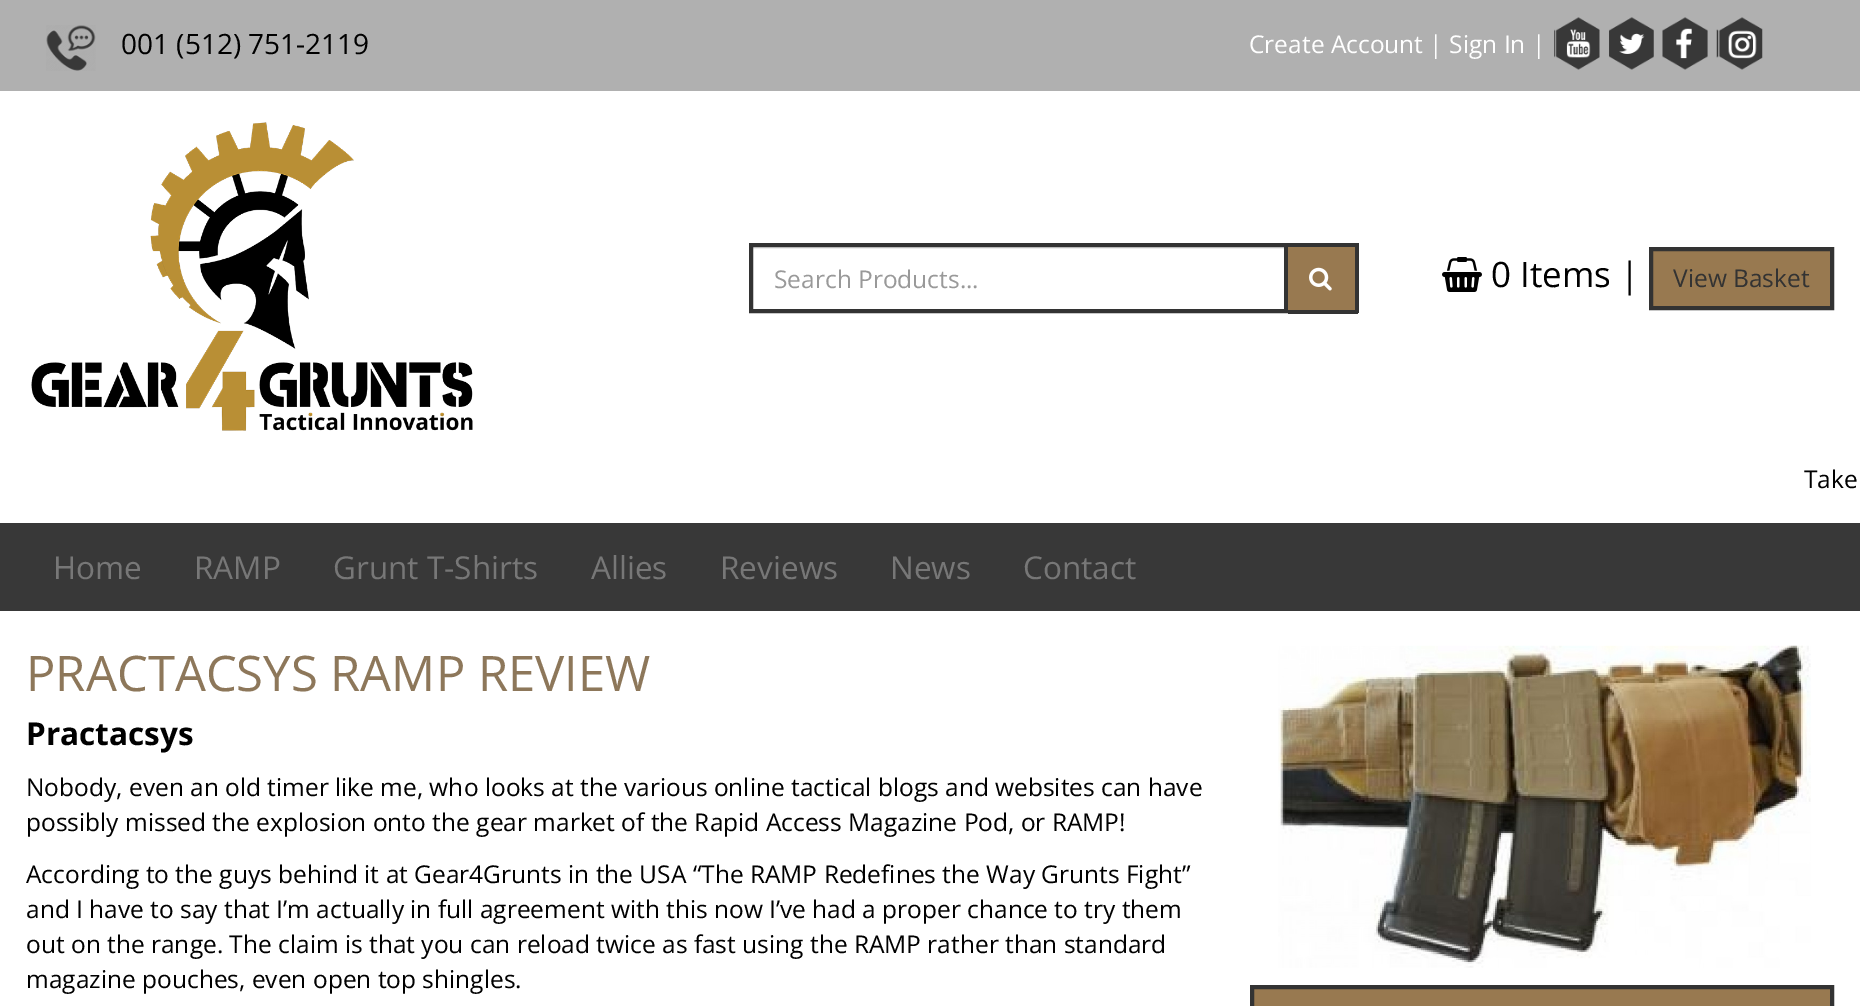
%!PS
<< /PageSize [1860 1006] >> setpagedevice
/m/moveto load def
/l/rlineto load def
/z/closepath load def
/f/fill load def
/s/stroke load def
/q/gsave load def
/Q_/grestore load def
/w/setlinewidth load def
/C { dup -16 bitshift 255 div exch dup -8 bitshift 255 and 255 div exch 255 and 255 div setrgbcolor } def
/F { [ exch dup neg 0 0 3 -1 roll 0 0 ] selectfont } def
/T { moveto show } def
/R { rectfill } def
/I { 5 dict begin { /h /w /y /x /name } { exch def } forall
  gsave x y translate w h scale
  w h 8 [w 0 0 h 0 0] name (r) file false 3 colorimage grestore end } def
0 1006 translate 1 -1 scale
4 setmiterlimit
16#FFFFFF C
0 0 1860 1006 R
16#B0B0B0 C
0 0 1860 91 R
(1.rgb) 46 25 50 46 I
/OpenSans-Regular 28 F
16#000000 C
(001 \(512\) 751-2119) 121 54 T
/OpenSans-Regular 24.5 F
16#FFFFFF C
(Create Account | Sign In |) 1249 53 T
(2.rgb) 1554 17 46 53 I
(3.rgb) 1609 17 45 53 I
(4.rgb) 1662 17 46 53 I
(5.rgb) 1716 17 47 53 I
(6.rgb) 31 122 442 309 I
16#ECECEC C
753 247 532 2 R
16#333333 C
4 w
751 245 535 66 rectstroke
16#999999 C
(Search Products...) 774 288 T
16#987950 C
1288 247 67 63 R
16#333333 C
1288 243 70 4 R
1355 243 4 70 R
1288 310 70 4 R
(7.rgb) 1309 267 23 24 I
(8.rgb) 1442 257 40 35 I
/OpenSans-Regular 35 F
16#000000 C
(0 Items |) 1491 287 T
16#987950 C
1651 249 m 181 0 l 0 59 l -181 0 l z q f Q_
16#333333 C
s
/OpenSans-Regular 24.5 F
(View Basket) 1673 287 T
16#000000 C
(Take) 1804 488 T
16#383838 C
0 523 1860 88 R
/OpenSans-Regular 31.5 F
16#777777 C
(Home) 53 579 T
(RAMP) 194 579 T
(Grunt T-Shirts) 333 579 T
(Allies) 591 579 T
(Reviews) 720 579 T
(News) 890 579 T
(Contact) 1023 579 T
/OpenSans-Regular 49 F
16#8D775A C
(PRACTACSYS RAMP REVIEW) 26 691 T
/OpenSans-Bold 31.5 F
16#000000 C
(Practacsys) 26 745 T
/OpenSans-Regular 24.5 F
(Nobody, even an old timer like me, who looks at the various online tactical blogs and websites can have) 26 796 T
(possibly missed the explosion onto the gear market of the Rapid Access Magazine Pod, or RAMP!) 26 831 T
(According to the guys behind it at Gear4Grunts in the USA “The RAMP Redefines the Way Grunts Fight”) 26 883 T
(and I have to say that I’m actually in full agreement with this now I’ve had a proper chance to try them) 26 918 T
(out on the range. The claim is that you can reload twice as fast using the RAMP rather than standard) 26 953 T
(magazine pouches, even open top shingles.) 26 988 T
(9.rgb) 1278 645 533 323 I
16#987950 C
1252 987 m 580 0 l 0 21 l -580 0 l z q f Q_
16#333333 C
s
showpage
